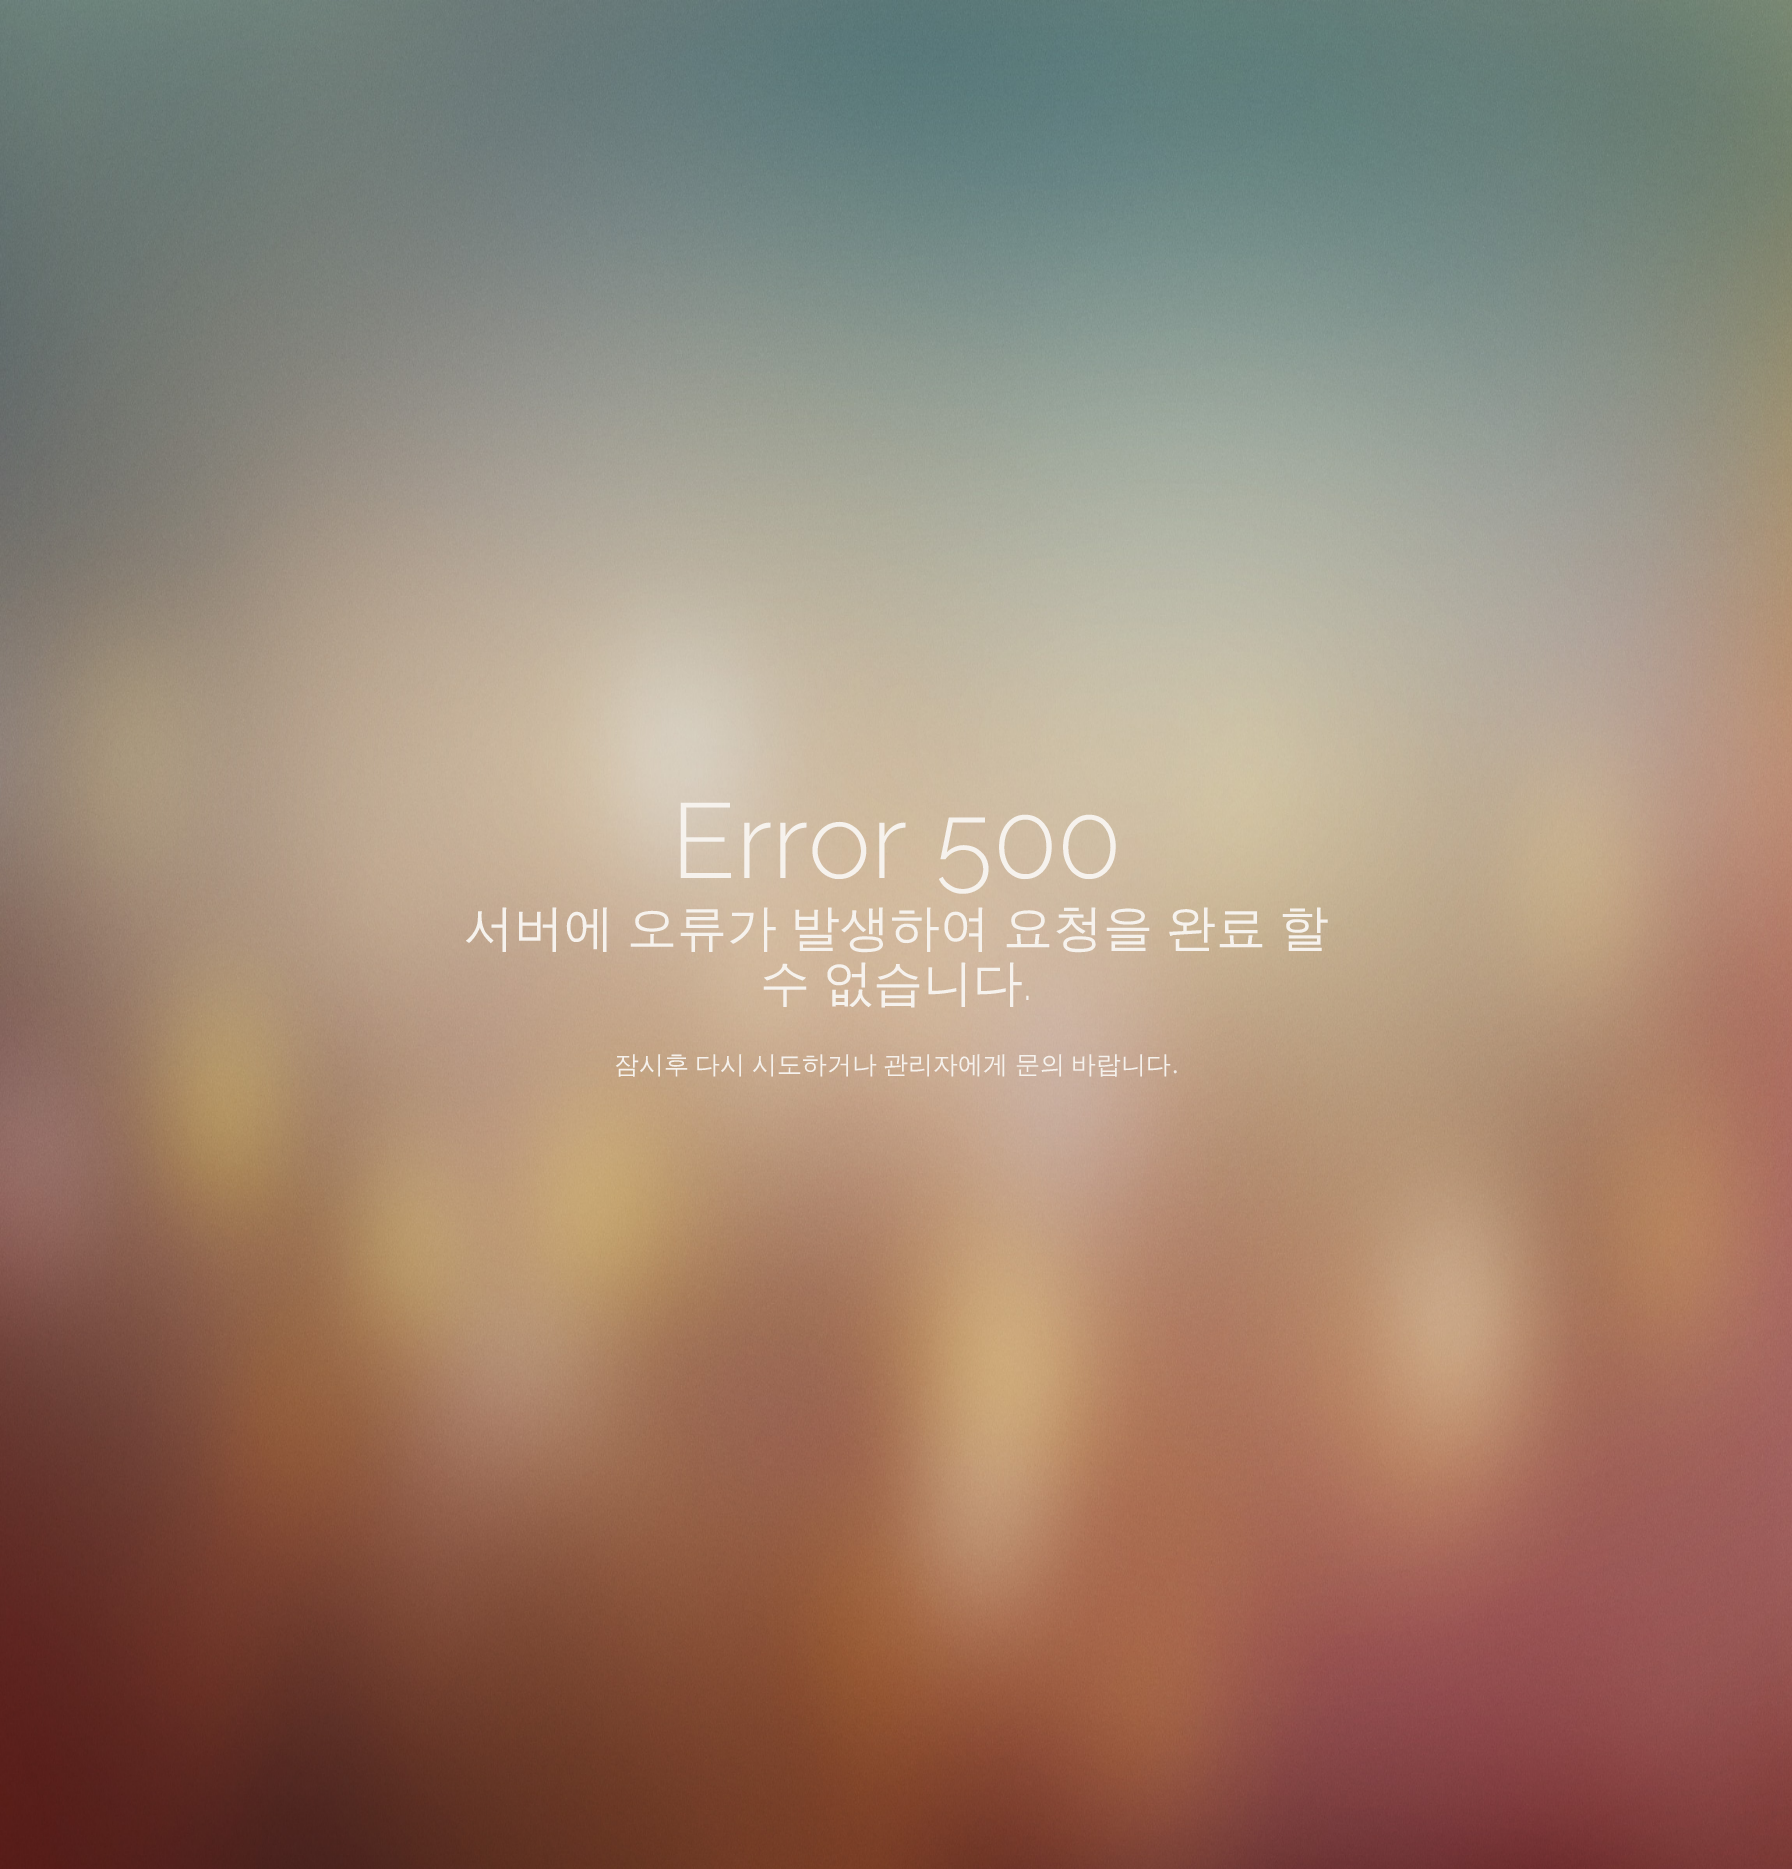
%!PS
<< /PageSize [1792 1869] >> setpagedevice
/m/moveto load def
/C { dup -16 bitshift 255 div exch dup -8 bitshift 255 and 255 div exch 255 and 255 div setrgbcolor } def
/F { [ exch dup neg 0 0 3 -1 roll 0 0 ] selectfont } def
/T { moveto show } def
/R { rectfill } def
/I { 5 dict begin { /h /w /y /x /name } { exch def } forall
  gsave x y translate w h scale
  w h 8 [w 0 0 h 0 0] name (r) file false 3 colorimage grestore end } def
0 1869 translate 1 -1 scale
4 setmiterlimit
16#FFFFFF C
0 0 1792 1869 R
(1.rgb) 0 0 1792 1869 I
/Raleway-Light 106.25 F
16#F6F2ED C
(Error 500) 671 878 T
/WenQuanYiZenHei-Medium 50 F
464 945 m -2 0 32 (서버에 오류가 발생하여 요청을 완료 할) widthshow
760 1000 m -2 0 32 (수 없습니다) widthshow
/Raleway-Light 50 F
(.) 1023 1000 T
/WenQuanYiZenHei-Medium 25 F
614 1073 m -1 0 32 (잠시후 다시 시도하거나 관리자에게 문의 바랍니다) widthshow
/OpenSans-Regular 25 F
16#F2ECE7 C
(.) 1172 1073 T
showpage
